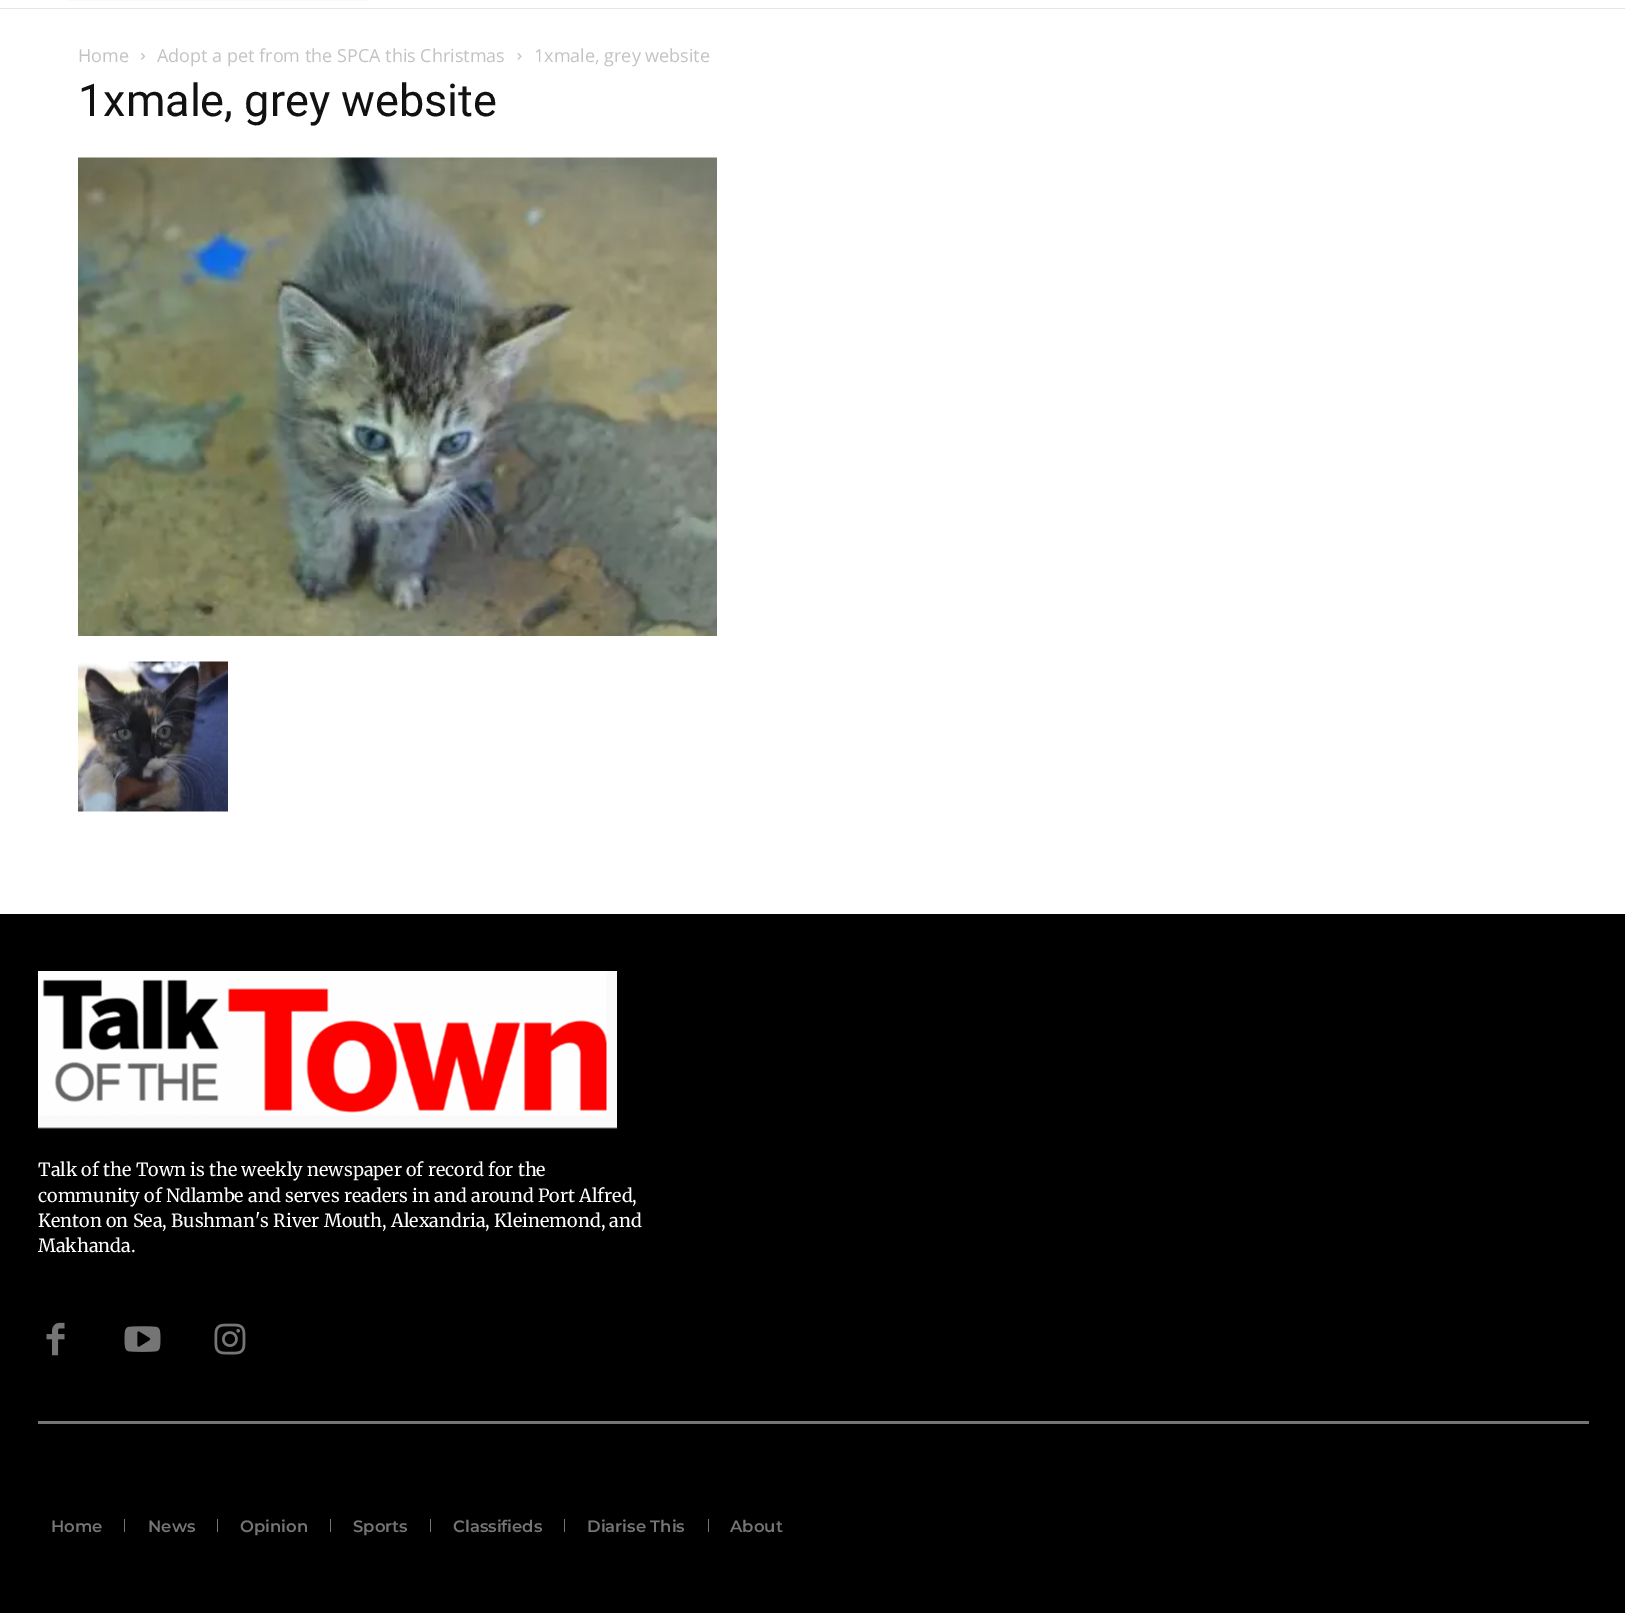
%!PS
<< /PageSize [1625 1613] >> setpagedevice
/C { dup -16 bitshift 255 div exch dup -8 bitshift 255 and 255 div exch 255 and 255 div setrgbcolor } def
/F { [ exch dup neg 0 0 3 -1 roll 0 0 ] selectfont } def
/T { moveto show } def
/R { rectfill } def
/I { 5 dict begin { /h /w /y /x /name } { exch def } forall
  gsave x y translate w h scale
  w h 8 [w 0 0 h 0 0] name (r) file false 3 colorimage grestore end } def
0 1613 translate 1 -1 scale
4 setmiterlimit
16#FFFFFF C
0 0 1625 1613 R
16#FAFAFA C
68 0 300 1 R
16#E5E5E5 C
0 8 1625 1 R
/OpenSans-Regular 18 F
16#C3C3C3 C
(Home) 78 62 T
(1.rgb) 141 53 4 7 I
(Adopt a pet from the SPCA this Christmas) 157 62 T
(2.rgb) 517 53 5 7 I
(1xmale, grey website) 534 62 T
/Roboto-Regular 45 F
16#111111 C
(1xmale, grey website) 78 116 T
(3.rgb) 78 157 639 479 I
(4.rgb) 78 661 150 151 I
16#000000 C
0 914 1625 699 R
(5.rgb) 38 971 579 158 I
/Merriweather-Regular 18 F
16#FFFFFF C
(Talk of the Town is the weekly newspaper of record for the) 38 1176 T
(community of Ndlambe and serves readers in and around Port Alfred,) 38 1202 T
(Kenton on Sea, Bushman's River Mouth, Alexandria, Kleinemond, and) 38 1227 T
(Makhanda.) 38 1252 T
(6.rgb) 46 1322 19 34 I
(7.rgb) 124 1326 37 26 I
(8.rgb) 214 1323 32 32 I
16#757575 C
38 1421 1551 3 R
/Montserrat-SemiBold 16.5 F
(Home) 51 1532 T
124 1519 1 13 R
(News) 148 1532 T
217 1519 1 13 R
(Opinion) 240 1532 T
330 1519 1 13 R
(Sports) 353 1532 T
430 1519 1 13 R
(Classifieds) 453 1532 T
564 1519 1 13 R
(Diarise This) 587 1532 T
708 1519 1 13 R
(About) 730 1532 T
showpage
